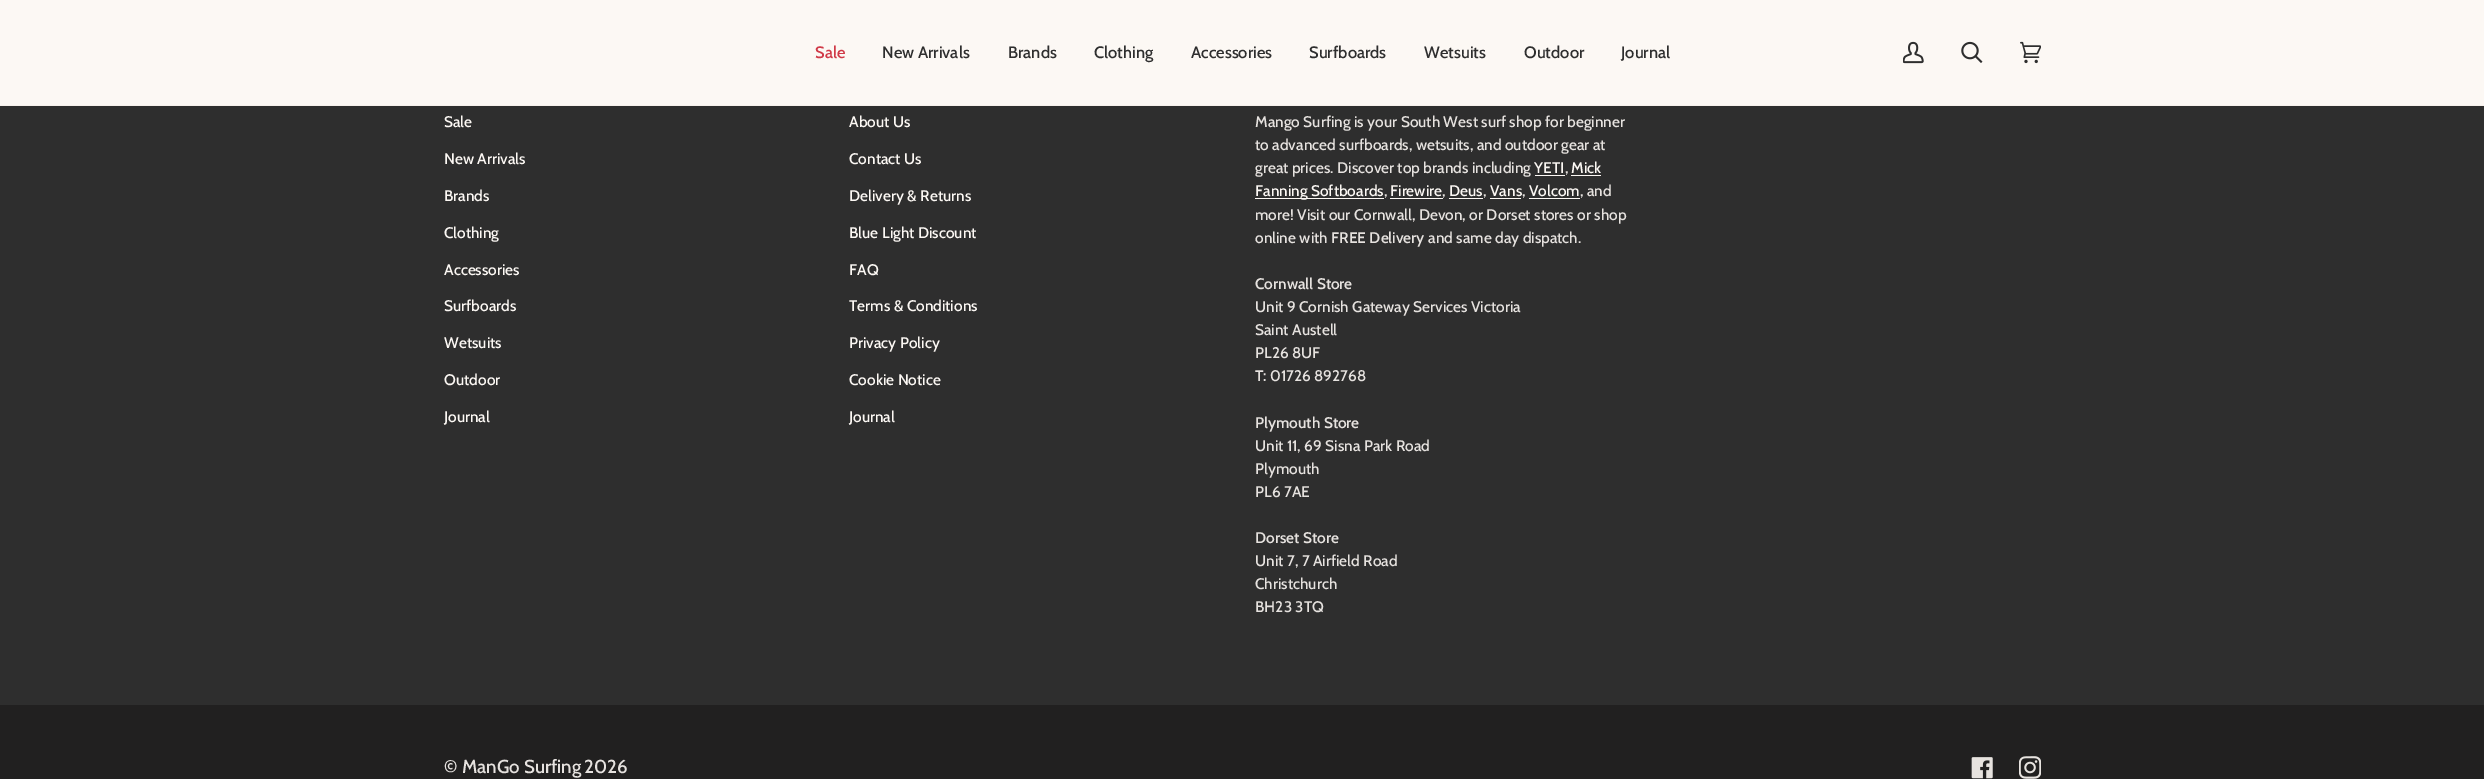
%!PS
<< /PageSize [2484 779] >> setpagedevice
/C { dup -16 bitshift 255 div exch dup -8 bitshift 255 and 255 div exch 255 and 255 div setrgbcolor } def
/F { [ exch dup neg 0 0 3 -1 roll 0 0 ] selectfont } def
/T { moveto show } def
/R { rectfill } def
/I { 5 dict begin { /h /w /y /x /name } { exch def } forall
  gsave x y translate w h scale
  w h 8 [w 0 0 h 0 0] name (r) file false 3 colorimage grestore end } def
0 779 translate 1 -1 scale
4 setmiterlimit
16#212020 C
0 0 2484 779 R
16#F7F1EC C
0 105 2484 1 R
16#FCF8F4 C
0 0 2484 105 R
/Cabin-Medium 16.5 F
16#D03947 C
(Sale) 815 58 T
16#2E2E2E C
(New Arrivals) 882 58 T
(Brands) 1008 58 T
(Clothing) 1094 58 T
(Accessories) 1191 58 T
(Surfboards) 1309 58 T
(Wetsuits) 1424 58 T
(Outdoor) 1524 58 T
(Journal) 1621 58 T
(1.rgb) 1903 41 21 23 I
(2.rgb) 1961 41 22 22 I
(3.rgb) 2020 41 21 23 I
0 106 2484 599 R
/Cabin-Medium 15.4 F
16#FCF8F4 C
(Sale) 444 127 T
(New Arrivals) 444 164 T
(Brands) 444 201 T
(Clothing) 444 238 T
(Accessories) 444 275 T
(Surfboards) 444 311 T
(Wetsuits) 444 348 T
(Outdoor) 444 385 T
(Journal) 444 422 T
(About Us) 849 127 T
(Contact Us) 849 164 T
(Delivery & Returns) 849 201 T
(Blue Light Discount) 849 238 T
(FAQ) 849 275 T
(Terms & Conditions) 849 311 T
(Privacy Policy) 849 348 T
(Cookie Notice) 849 385 T
(Journal) 849 422 T
16#E6E2DF C
(Mango Surfing is your South West surf shop for beginner) 1255 127 T
(to advanced surfboards, wetsuits, and outdoor gear at) 1255 150 T
(great prices. Discover top brands including) 1255 173 T
16#FCF8F4 C
(YETI) 1534 173 T
1535 175 30 1 R
16#E6E2DF C
(,) 1565 173 T
16#FCF8F4 C
(Mick) 1571 173 T
1571 175 30 1 R
1255 198 129 1 R
(Fanning Softboards) 1255 196 T
16#E6E2DF C
(,) 1384 196 T
16#FCF8F4 C
(Firewire) 1390 196 T
1390 198 53 1 R
16#E6E2DF C
(,) 1442 196 T
16#FCF8F4 C
(Deus) 1449 196 T
1449 198 34 1 R
16#E6E2DF C
(,) 1483 196 T
16#FCF8F4 C
(Vans) 1490 196 T
1490 198 31 1 R
16#E6E2DF C
(,) 1522 196 T
16#FCF8F4 C
(Volcom) 1529 196 T
1529 198 51 1 R
16#E6E2DF C
(, and) 1580 196 T
(more! Visit our Cornwall, Devon, or Dorset stores or shop) 1255 220 T
(online with) 1255 243 T
/Cabin-SemiBold 15.4 F
(FREE Delivery) 1331 243 T
/Cabin-Medium 15.4 F
(and same day dispatch.) 1428 243 T
/Cabin-SemiBold 15.4 F
(Cornwall Store) 1255 289 T
/Cabin-Medium 15.4 F
(Unit 9 Cornish Gateway Services Victoria) 1255 312 T
(Saint Austell) 1255 335 T
(PL26 8UF) 1255 358 T
/Cabin-SemiBold 15.4 F
(T:) 1255 381 T
/Cabin-Medium 15.4 F
(01726 892768) 1270 381 T
/Cabin-SemiBold 15.4 F
(Plymouth Store) 1255 428 T
/Cabin-Medium 15.4 F
(Unit 11, 69 Sisna Park Road) 1255 451 T
(Plymouth) 1255 474 T
(PL6 7AE) 1255 497 T
/Cabin-SemiBold 15.4 F
(Dorset Store) 1255 543 T
/Cabin-Medium 15.4 F
(Unit 7, 7 Airfield Road) 1255 566 T
(Christchurch) 1255 589 T
(BH23 3TQ) 1255 612 T
/Cabin-Medium 18.75 F
(© ManGo Surfing) 444 773 T
(2026) 584 773 T
(4.rgb) 1971 757 22 22 I
(5.rgb) 2019 756 22 23 I
showpage
